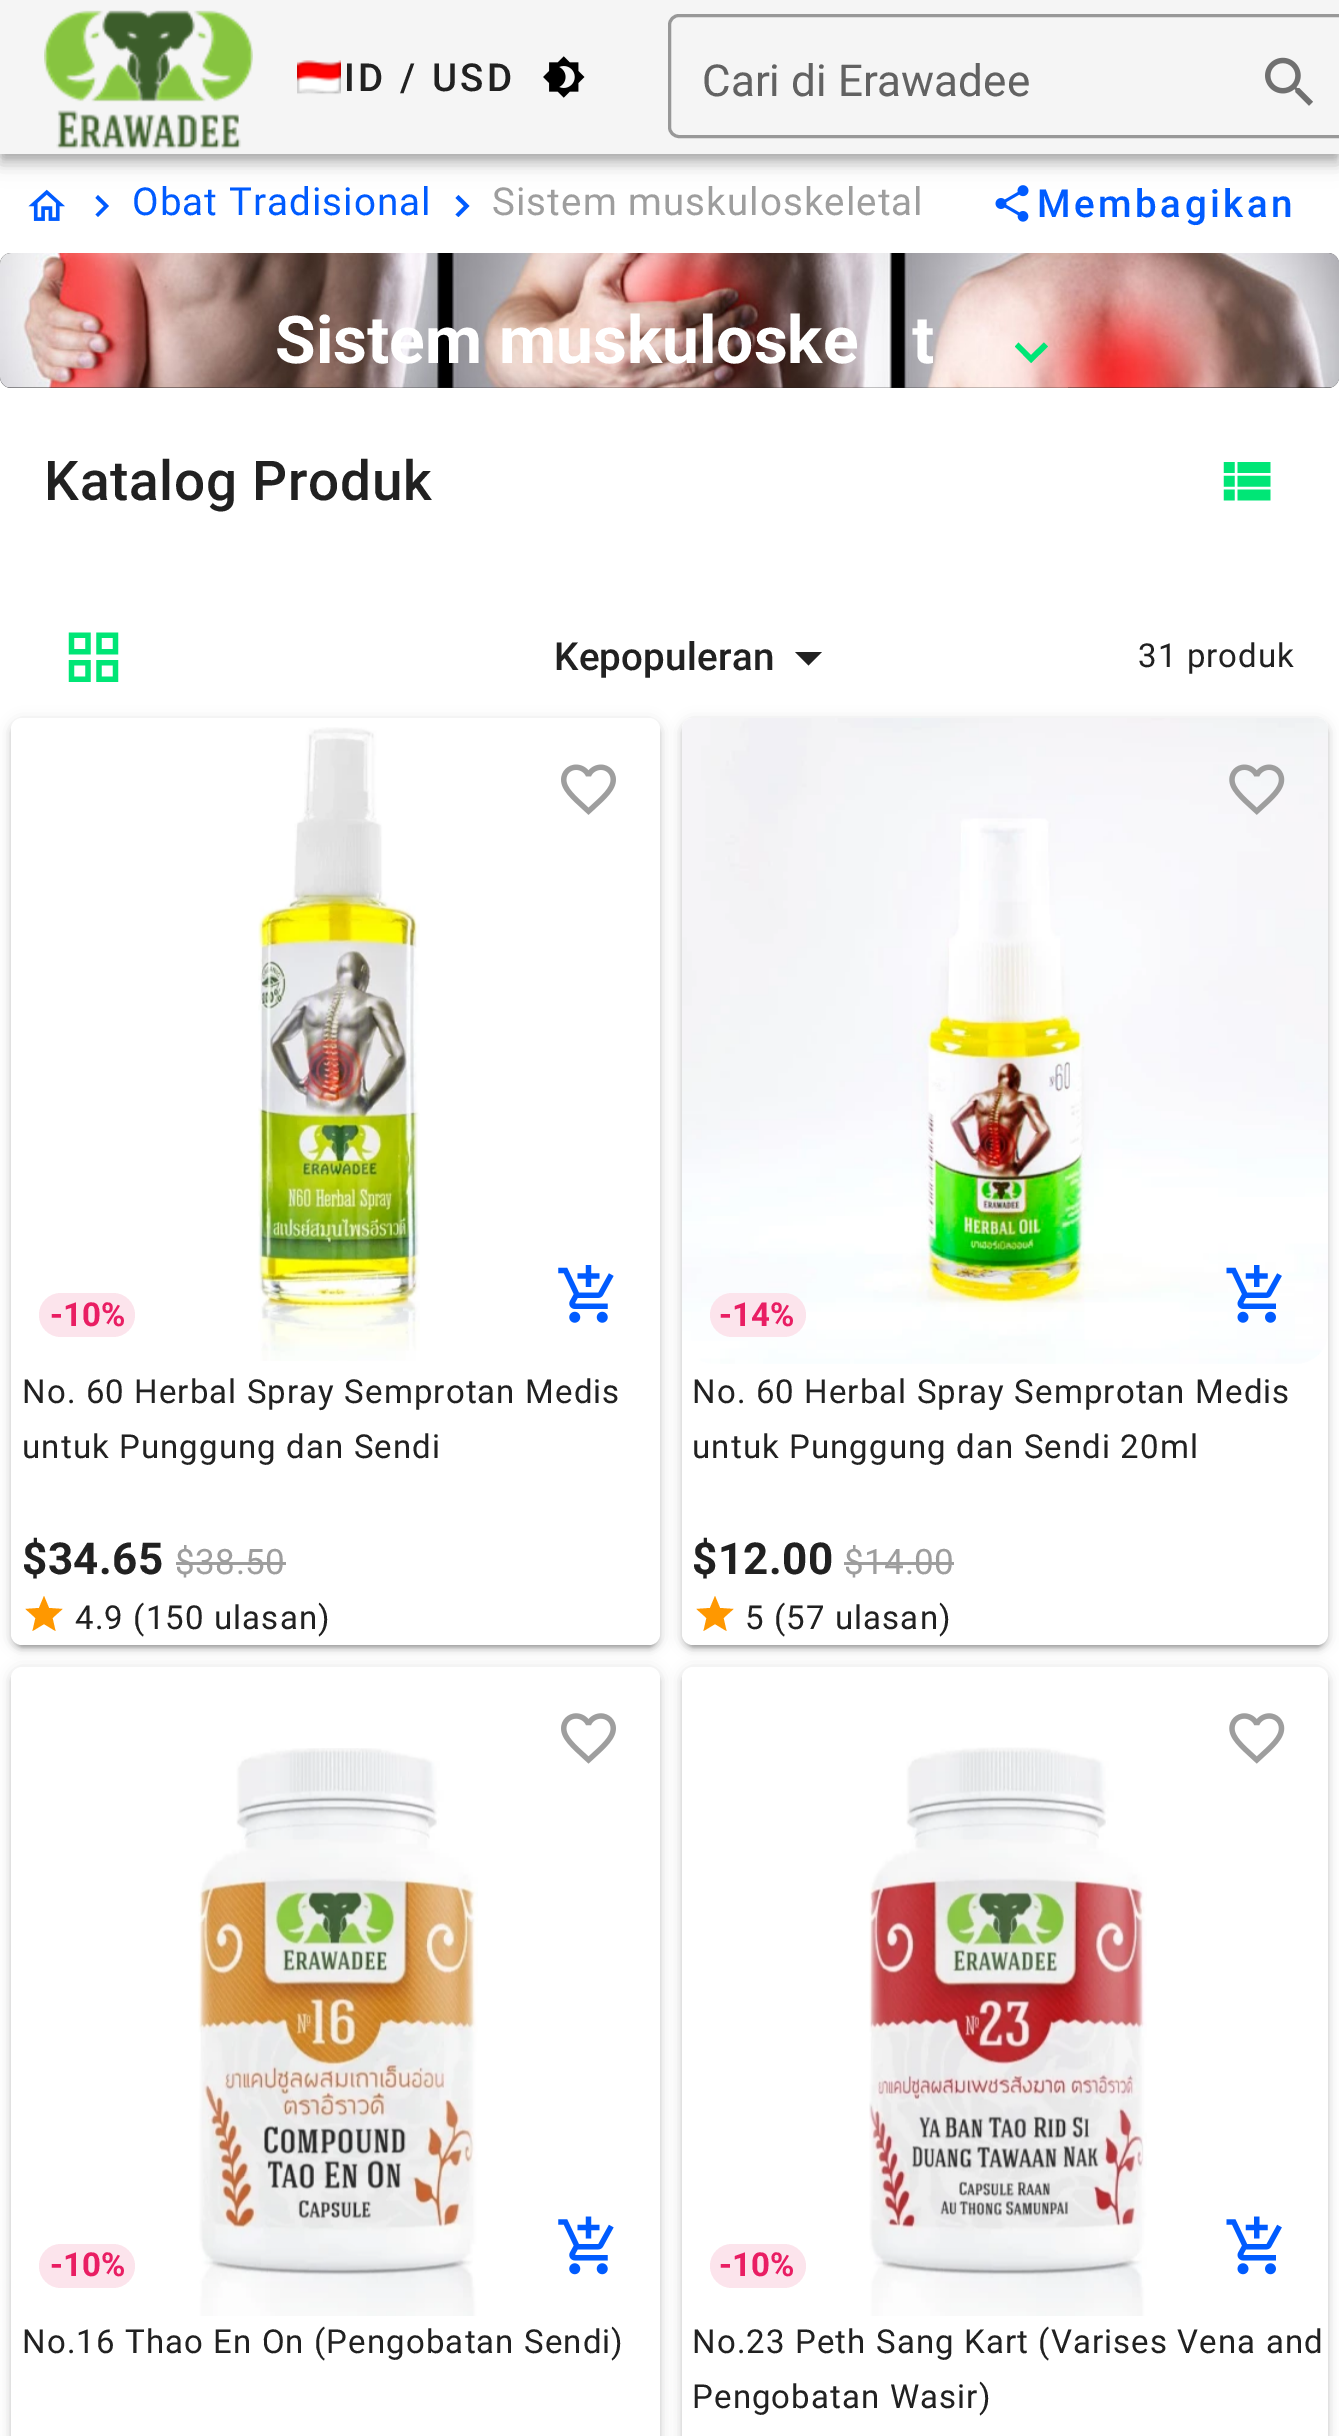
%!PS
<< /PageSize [1339 2436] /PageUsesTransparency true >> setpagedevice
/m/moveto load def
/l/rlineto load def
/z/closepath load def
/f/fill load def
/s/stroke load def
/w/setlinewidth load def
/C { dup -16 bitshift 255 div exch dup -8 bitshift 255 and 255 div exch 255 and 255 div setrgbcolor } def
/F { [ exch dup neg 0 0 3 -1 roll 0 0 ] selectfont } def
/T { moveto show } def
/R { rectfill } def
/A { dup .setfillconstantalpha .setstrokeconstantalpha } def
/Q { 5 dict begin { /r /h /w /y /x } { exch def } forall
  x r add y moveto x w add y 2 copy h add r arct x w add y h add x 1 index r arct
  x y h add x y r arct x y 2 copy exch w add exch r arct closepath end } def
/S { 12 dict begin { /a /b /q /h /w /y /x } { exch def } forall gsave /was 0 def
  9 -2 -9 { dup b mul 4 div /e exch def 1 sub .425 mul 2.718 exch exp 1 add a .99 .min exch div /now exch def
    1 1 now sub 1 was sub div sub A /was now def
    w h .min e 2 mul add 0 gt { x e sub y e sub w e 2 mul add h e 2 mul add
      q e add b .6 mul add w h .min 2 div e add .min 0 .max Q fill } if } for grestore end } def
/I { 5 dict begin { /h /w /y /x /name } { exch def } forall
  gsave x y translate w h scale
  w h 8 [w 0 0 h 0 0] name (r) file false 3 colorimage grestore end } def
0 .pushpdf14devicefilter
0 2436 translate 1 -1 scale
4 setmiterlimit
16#FFFFFF C
0 0 1339 2436 R
(5.rgb) 28 189 37 32 I
16#005BFF C
95.5 214.5 m 8.5 -8.5 l -8.5 -8 l 2.5 -3 l 11 11 l -11 11 l z f
455.5 214.5 m 8.5 -8.5 l -8.5 -8 l 3 -3 l 11 11 l -11 11 l z f
(6.rgb) 995 185 34 37 I
16#000000 C
0 3 1339 154 0 14 .12 S
0 11 1339 154 0 7 .14 S
3 8 1334 149 0 5.5 .2 S
16#F5F5F5 C
0 0 1339 154 R
(1.rgb) 44 10 209 139 I
(2.rgb) 297 60 44 35 I
/Roboto-Medium 38.5 F
16#212121 C
344 91 m 3.5 0 (ID / USD) ashow
(3.rgb) 543 56 42 42 I
16#989898 C
3 w
669.5 15.5 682 121 9.5 Q s
/Roboto-Regular 44 F
16#626262 C
(Cari di Erawadee) 702 96 T
(4.rgb) 1265 57 48 49 I
/Roboto-Regular 38.5 F
16#005BFF C
132 215 m 1.1 0 (Obat Tradisional) ashow
16#9E9E9E C
492 215 m 1.1 0 (Sistem muskuloskeletal) ashow
/Roboto-Medium 38.5 F
16#005BFF C
1037 217 m 3.5 0 (Membagikan) ashow
16#1E1E1E C
0 253 1339 135 11 Q f
(7.rgb) 0 253 1339 135 I
/Roboto-Bold 66 F
16#FFFFFF C
(Sistem muskuloske) 275 363 T
(t) 912 363 T
16#00E676 C
1018.5 342.5 m 12.5 12.5 l 13 -12.5 l 4 4 l -17 16.5 l -16 -16.5 l z f
/Roboto-Medium 55 F
16#212121 C
44 500 m .75 0 (Katalog Produk) ashow
(8.rgb) 1223 462 48 39 I
(9.rgb) 68 632 51 50 I
/Roboto-Medium 38.5 F
554 670 m .25 0 (Kepopuleran) ashow
795 652 m 13.5 13.5 l 13.5 -13.5 l z f
/Roboto-Regular 33 F
1138 667 m 1.1 0 (31 produk) ashow
16#000000 C
11 721 649 926 11 7 .12 S
11 723 649 927 11 3 .14 S
17 732 638 915 6 1.5 .2 S
16#FFFFFF C
11 718 649 927 11 Q f
(10.rgb) 561 764 55 51 I
16#FCE4EC C
39 1293 96 44 22 Q f
/Roboto-Bold 33 F
16#E91E63 C
(-10%) 50 1326 T
(11.rgb) 558 1265 56 58 I
(12.rgb) 258 727 162 634 I
/Roboto-Regular 33 F
16#212121 C
22 1403 m 1.1 0 (No. 60 Herbal Spray Semprotan Medis) ashow
22 1458 m 1.1 0 (untuk Punggung dan Sendi) ashow
/Roboto-Bold 44 F
22 1574 m .5 0 ($34.65) ashow
/Roboto-Regular 35 F
16#9E9E9E C
175 1574 m .5 0 ($38.50) ashow
176 1562 110 3 R
16#FF9800 C
44 1624 m 11.5 7 l -3 -13 l 10 -9 l -13.5 -1 l -5 -12 l -5 12 l -13.5 1 l 10 9 l -3 13 l z f
/Roboto-Regular 33 F
16#212121 C
75 1629 m 1.1 0 (4.9 \(150 ulasan\)) ashow
16#000000 C
682 721 646 926 11 7 .12 S
682 723 646 927 11 3 .14 S
688 732 635 915 6 1.5 .2 S
16#FFFFFF C
682 718 646 927 11 Q f
(13.rgb) 682 718 646 646 I
(14.rgb) 1229 764 56 51 I
16#FCE4EC C
710 1293 96 44 22 Q f
/Roboto-Bold 33 F
16#E91E63 C
(-14%) 719 1326 T
(15.rgb) 1226 1265 56 58 I
/Roboto-Regular 33 F
16#212121 C
692 1403 m 1.1 0 (No. 60 Herbal Spray Semprotan Medis) ashow
692 1458 m 1.1 0 (untuk Punggung dan Sendi 20ml) ashow
/Roboto-Bold 44 F
692 1574 m .5 0 ($12.00) ashow
/Roboto-Regular 35 F
16#9E9E9E C
844 1574 m .5 0 ($14.00) ashow
844 1562 110 3 R
16#FF9800 C
715 1624 m 11.5 7 l -3 -13 l 10 -9 l -13.5 -1 l -5 -12 l -5 12 l -13.5 1 l 10 9 l -3 13 l z f
/Roboto-Regular 33 F
16#212121 C
745 1629 m 1.1 0 (5 \(57 ulasan\)) ashow
16#000000 C
11 1669 649 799 11 7 .12 S
11 1672 649 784 11 3 .14 S
16#FFFFFF C
11 1667 649 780 11 Q f
(16.rgb) 561 1713 55 51 I
16#FCE4EC C
39 2244 96 44 22 Q f
/Roboto-Bold 33 F
16#E91E63 C
(-10%) 50 2276 T
(17.rgb) 558 2216 56 59 I
(18.rgb) 198 1748 280 568 I
/Roboto-Regular 33 F
16#212121 C
22 2353 m 1.1 0 (No.16 Thao En On \(Pengobatan Sendi\)) ashow
16#000000 C
682 1669 646 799 11 7 .12 S
682 1672 646 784 11 3 .14 S
16#FFFFFF C
682 1667 646 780 11 Q f
(19.rgb) 1229 1713 56 51 I
16#FCE4EC C
710 2244 96 44 22 Q f
/Roboto-Bold 33 F
16#E91E63 C
(-10%) 719 2276 T
(20.rgb) 1226 2216 56 59 I
(21.rgb) 869 1747 278 569 I
/Roboto-Regular 33 F
16#212121 C
692 2353 m 1.1 0 (No.23 Peth Sang Kart \(Varises Vena and) ashow
692 2408 m 1.1 0 (Pengobatan Wasir\)) ashow
.poppdf14devicefilter showpage
